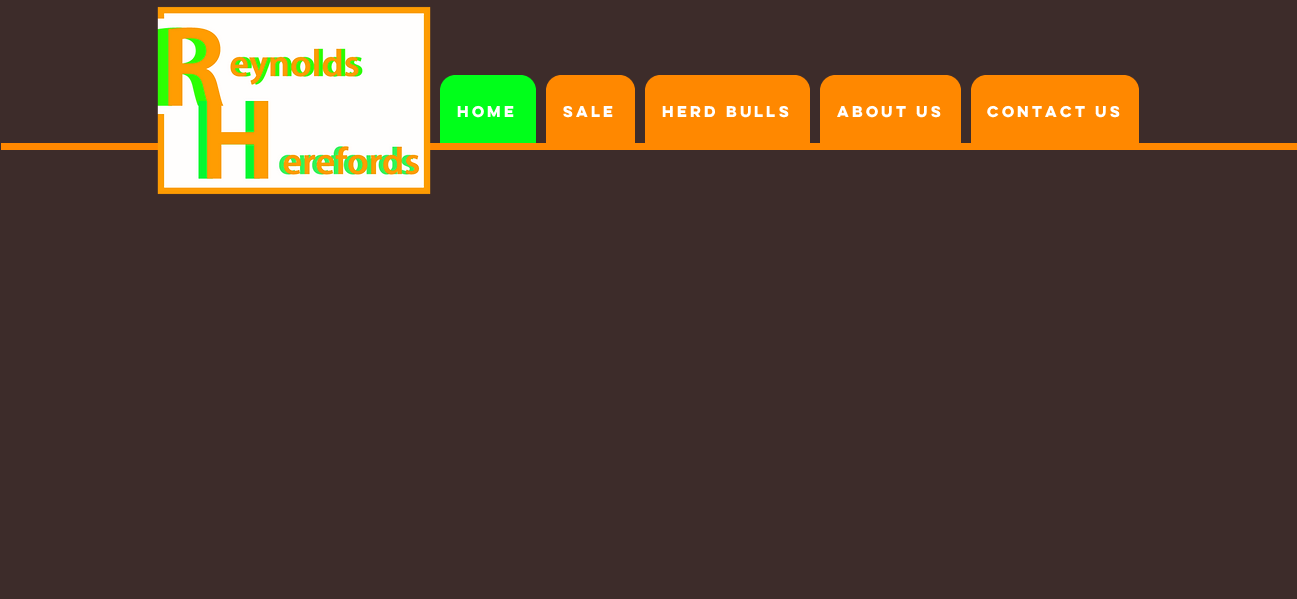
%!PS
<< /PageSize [1297 599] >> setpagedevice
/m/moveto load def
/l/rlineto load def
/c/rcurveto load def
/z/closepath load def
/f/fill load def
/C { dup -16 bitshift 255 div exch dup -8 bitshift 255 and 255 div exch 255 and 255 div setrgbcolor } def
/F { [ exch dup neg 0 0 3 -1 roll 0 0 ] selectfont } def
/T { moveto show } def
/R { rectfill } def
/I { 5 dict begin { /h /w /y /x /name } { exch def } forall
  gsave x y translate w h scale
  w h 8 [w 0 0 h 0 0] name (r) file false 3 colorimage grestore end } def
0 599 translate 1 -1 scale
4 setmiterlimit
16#3D2C2A C
0 0 1297 599 R
16#00FF1A C
456 75 m 64 0 l 9 0 16 7 16 16 c 0 57 l -96 0 l 0 -57 l 0 -9 7 -16 16 -16 c z f
16#FF8800 C
562 75 m 57 0 l 9 0 16 7 16 16 c 0 57 l -89 0 l 0 -57 l 0 -9 7 -16 16 -16 c z f
661 75 m 133 0 l 9 0 16 7 16 16 c 0 57 l -165 0 l 0 -57 l 0 -9 7 -16 16 -16 c z f
836 75 m 109 0 l 9 0 16 7 16 16 c 0 57 l -141 0 l 0 -57 l 0 -9 7 -16 16 -16 c z f
987 75 m 136 0 l 9 0 16 7 16 16 c 0 57 l -168 0 l 0 -57 l 0 -9 7 -16 16 -16 c z f
1 143 1296 7 R
(1.rgb) 157 6 274 189 I
/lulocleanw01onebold-Bold 14 F
16#FFFFFF C
(HOME) 457 117 T
(SALE) 563 117 T
(HERD BULLS) 662 117 T
(ABOUT US) 837 117 T
(CONTACT US) 987 117 T
showpage
